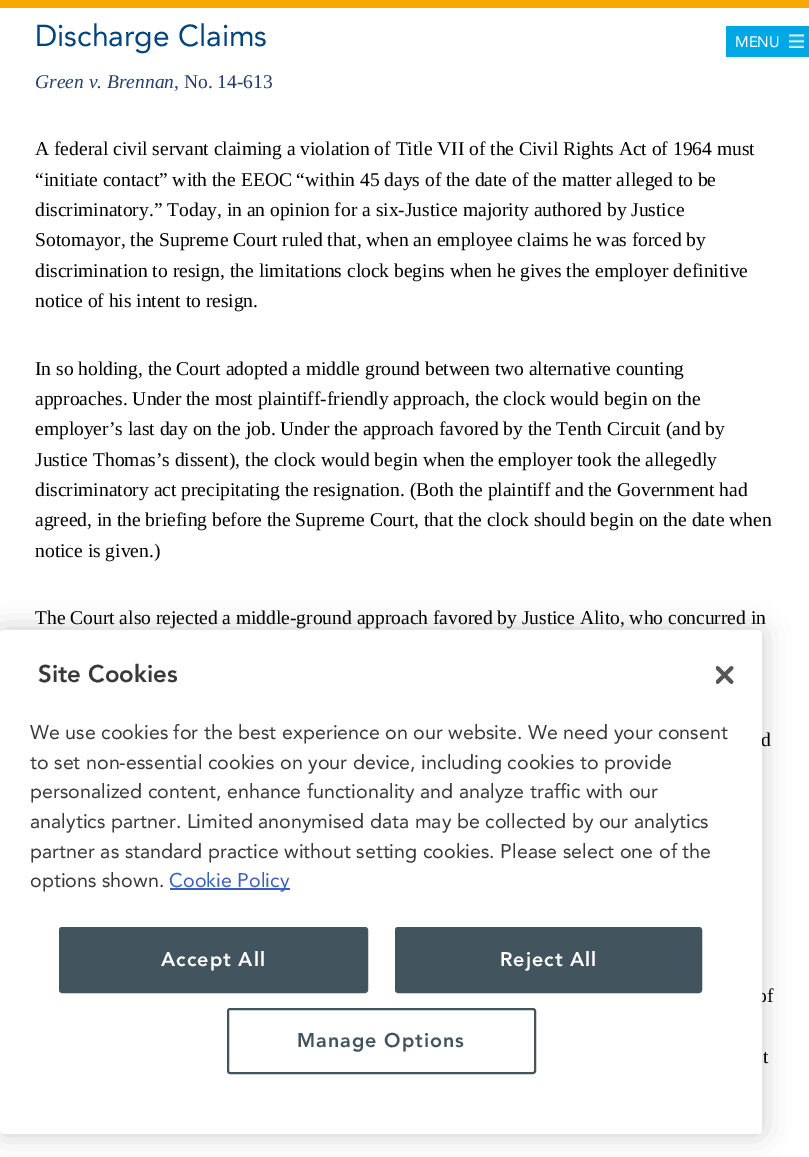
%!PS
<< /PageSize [809 1157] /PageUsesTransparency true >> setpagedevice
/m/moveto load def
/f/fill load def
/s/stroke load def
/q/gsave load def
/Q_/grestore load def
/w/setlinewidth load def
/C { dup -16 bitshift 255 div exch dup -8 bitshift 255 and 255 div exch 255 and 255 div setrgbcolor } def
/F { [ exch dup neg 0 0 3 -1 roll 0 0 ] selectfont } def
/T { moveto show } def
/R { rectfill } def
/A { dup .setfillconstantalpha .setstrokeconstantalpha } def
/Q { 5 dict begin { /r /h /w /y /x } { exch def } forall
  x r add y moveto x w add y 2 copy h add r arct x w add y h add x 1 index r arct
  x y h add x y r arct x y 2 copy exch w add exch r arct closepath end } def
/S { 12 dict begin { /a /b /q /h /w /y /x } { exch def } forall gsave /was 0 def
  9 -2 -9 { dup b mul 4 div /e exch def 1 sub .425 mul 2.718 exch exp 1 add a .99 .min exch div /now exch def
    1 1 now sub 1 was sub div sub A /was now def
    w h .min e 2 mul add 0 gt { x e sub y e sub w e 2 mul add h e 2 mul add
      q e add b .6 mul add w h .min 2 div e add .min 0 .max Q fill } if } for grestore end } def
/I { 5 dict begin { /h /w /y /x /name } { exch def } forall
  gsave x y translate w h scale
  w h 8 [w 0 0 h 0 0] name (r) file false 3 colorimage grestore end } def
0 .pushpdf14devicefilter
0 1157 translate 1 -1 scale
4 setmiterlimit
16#FFFFFF C
0 0 809 1157 R
/Avenir-Regular 30 F
16#00447C C
(Discharge Claims) 35 46 T
/LiberationSerif-Italic 19.5 F
16#263F6A C
(Green v. Brennan) 35 88 T
/LiberationSerif-Regular 19.5 F
(, No. 14-613) 174 88 T
16#000000 C
(A federal civil servant claiming a violation of Title VII of the Civil Rights Act of 1964 must) 35 155 T
(“initiate contact” with the EEOC “within 45 days of the date of the matter alleged to be) 35 186 T
(discriminatory.” Today, in an opinion for a six-Justice majority authored by Justice) 35 216 T
(Sotomayor, the Supreme Court ruled that, when an employee claims he was forced by) 35 246 T
(discrimination to resign, the limitations clock begins when he gives the employer definitive) 35 277 T
(notice of his intent to resign.) 35 307 T
(In so holding, the Court adopted a middle ground between two alternative counting) 35 375 T
(approaches. Under the most plaintiff-friendly approach, the clock would begin on the) 35 405 T
(employer’s last day on the job. Under the approach favored by the Tenth Circuit \(and by) 35 435 T
(Justice Thomas’s dissent\), the clock would begin when the employer took the allegedly) 35 466 T
(discriminatory act precipitating the resignation. \(Both the plaintiff and the Government had) 35 496 T
(agreed, in the briefing before the Supreme Court, that the clock should begin on the date when) 35 526 T
(notice is given.\)) 35 557 T
(The Court also rejected a middle-ground approach favored by Justice Alito, who concurred in) 35 624 T
(d) 761 746 T
(of) 757 1002 T
(t) 763 1063 T
16#F8A800 C
0 0 809 8 R
16#00A7E5 C
726 26 83 31 R
/Avenir-Regular 15 F
16#FFFFFF C
(MENU) 735 47 T
(1.rgb) 789 34 15 14 I
16#000000 C
0 630 762 504 4 13.5 .2 S
16#FFFFFF C
0 630 762 504 4 Q f
/Avenir-Black 24 F
16#393939 C
(Site Cookies) 38 682 T
/Avenir-Regular 19.7 F
(We use cookies for the best experience on our website. We need your consent) 30 739 T
(to set non-essential cookies on your device, including cookies to provide) 30 769 T
(personalized content, enhance functionality and analyze traffic with our) 30 798 T
(analytics partner. Limited anonymised data may be collected by our analytics) 30 828 T
(partner as standard practice without setting cookies. Please select one of the) 30 858 T
(options shown.) 30 887 T
16#3860BE C
170 888 120 2 R
(Cookie Policy) 169 887 T
(2.rgb) 716 666 18 18 I
16#42545E C
60 928 307 64 2 Q q f Q_
2 w
s
/Avenir-Black 19.7 F
16#FFFFFF C
161 966 m 1 0 (Accept All) ashow
16#42545E C
396 928 305 64 2 Q q f Q_
s
16#FFFFFF C
500 966 m 1 0 (Reject All) ashow
16#42545E C
228 1009 307 64 2 Q s
297 1047 m 1 0 (Manage Options) ashow
.poppdf14devicefilter showpage
